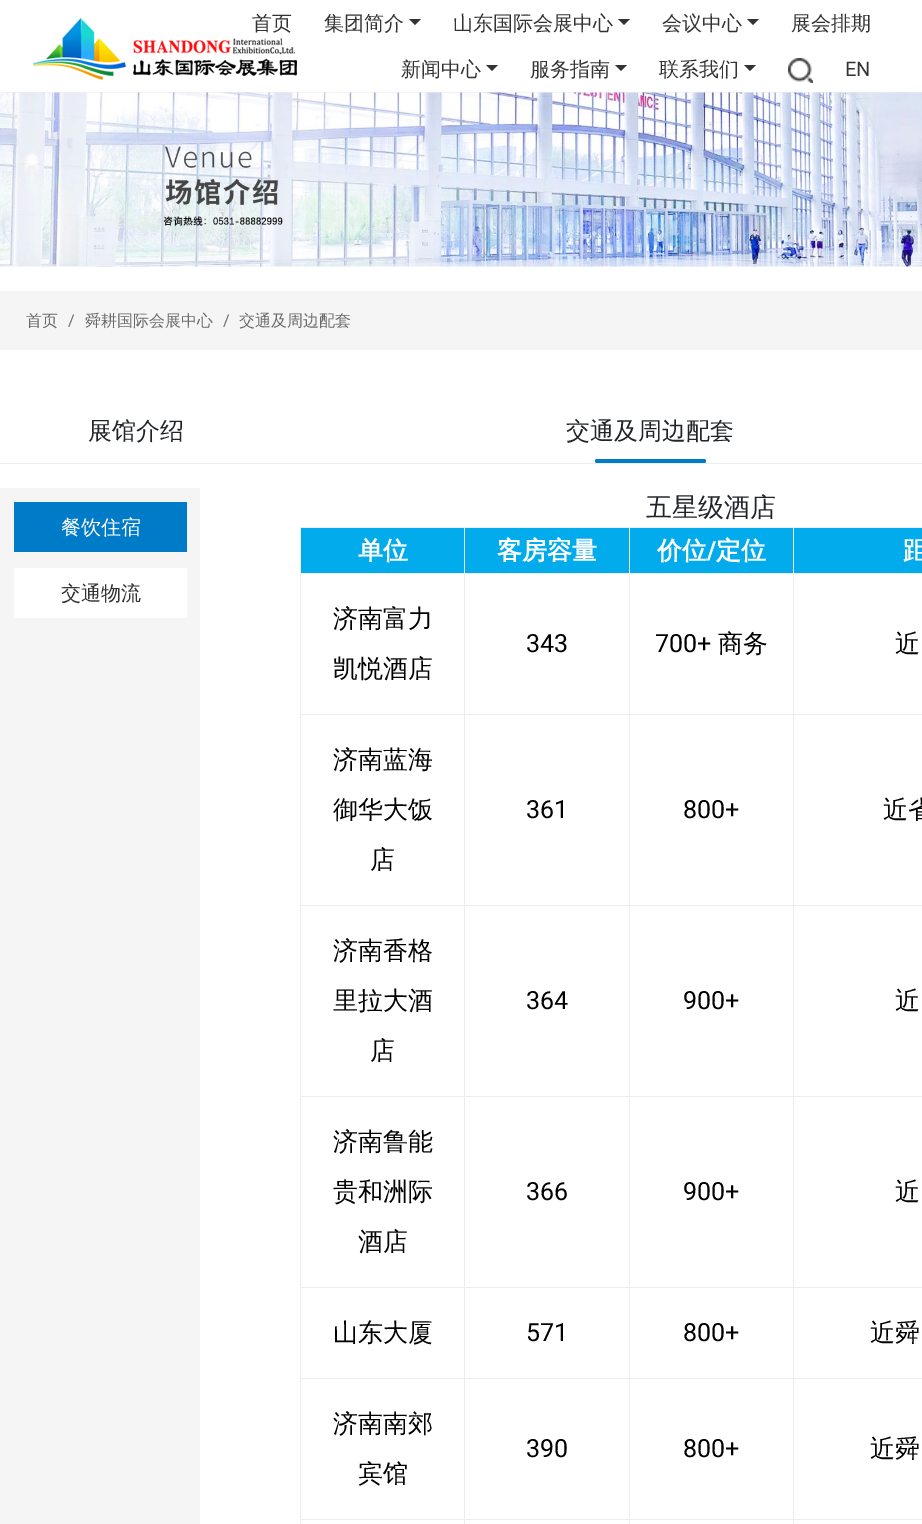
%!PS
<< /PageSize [922 1524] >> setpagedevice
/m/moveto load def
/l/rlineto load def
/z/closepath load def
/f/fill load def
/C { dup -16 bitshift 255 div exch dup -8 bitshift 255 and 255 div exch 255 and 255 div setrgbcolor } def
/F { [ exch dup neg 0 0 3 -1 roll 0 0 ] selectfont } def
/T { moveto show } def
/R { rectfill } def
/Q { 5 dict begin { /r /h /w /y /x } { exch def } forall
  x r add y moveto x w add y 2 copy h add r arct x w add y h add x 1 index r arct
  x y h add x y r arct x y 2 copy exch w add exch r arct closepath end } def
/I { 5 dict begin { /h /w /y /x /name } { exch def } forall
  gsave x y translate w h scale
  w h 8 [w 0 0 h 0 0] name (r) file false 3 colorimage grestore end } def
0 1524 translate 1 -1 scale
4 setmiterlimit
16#FFFFFF C
0 0 922 1524 R
(1.rgb) 33 15 264 65 I
/WenQuanYiZenHei-Medium 20 F
16#333333 C
(首页) 252 30 T
(集团简介) 324 30 T
409 19 m 12 0 l -6 6 l z f
(山东国际会展中心) 453 30 T
618 19 m 12 0 l -6 6 l z f
(会议中心) 662 30 T
747 19 m 12 0 l -6 6 l z f
(展会排期) 791 30 T
(新闻中心) 401 76 T
486 65 m 12 0 l -6 6 l z f
(服务指南) 530 76 T
615 65 m 12 0 l -6 6 l z f
(联系我们) 659 76 T
744 65 m 12 0 l -6 6 l z f
(2.rgb) 788 58 25 25 I
/Roboto-Regular 20 F
(EN) 845 76 T
(3.rgb) 0 92 922 175 I
16#F5F5F5 C
0 291 922 59 R
/WenQuanYiZenHei-Medium 16 F
16#6A6A6A C
(首页) 26 326 T
/Roboto-Regular 16 F
(/) 68 326 T
/WenQuanYiZenHei-Medium 16 F
(舜耕国际会展中心) 85 326 T
/Roboto-Regular 16 F
(/) 223 326 T
/WenQuanYiZenHei-Medium 16 F
(交通及周边配套) 239 326 T
16#EEEEEE C
0 463 922 1 R
/WenQuanYiZenHei-Medium 24 F
16#212529 C
(展馆介绍) 88 439 T
(交通及周边配套) 566 439 T
16#007BC7 C
595 459 111 4 2 Q f
16#F5F5F5 C
0 488 200 1036 R
16#007BC8 C
14 502 173 50 R
/WenQuanYiZenHei-Medium 20 F
16#FFFFFF C
(餐饮住宿) 61 534 T
14 568 173 50 R
16#333333 C
(交通物流) 61 600 T
/WenQuanYiZenHei-Medium 26 F
16#212529 C
(五星级酒店) 646 516 T
16#EDEDED C
300 527 622 1 R
300 527 1 997 R
16#02ABEB C
301 528 621 45 R
/WenQuanYiZenHei-Bold 25 F
16#FFFFFF C
(单位) 358 559 T
16#EDEDED C
793 573 129 1 R
793 714 129 1 R
793 905 129 1 R
793 1096 129 1 R
793 1287 129 1 R
793 1378 129 1 R
793 1519 129 1 R
793 1519 1 5 R
629 1519 165 1 R
793 1378 1 142 R
629 1378 165 1 R
793 1287 1 92 R
629 1287 165 1 R
793 1096 1 192 R
629 1096 165 1 R
793 905 1 192 R
629 905 165 1 R
793 714 1 192 R
629 714 165 1 R
793 573 1 142 R
629 573 165 1 R
629 1519 1 5 R
464 1519 166 1 R
629 1378 1 142 R
464 1378 166 1 R
629 1287 1 92 R
464 1287 166 1 R
629 1096 1 192 R
464 1096 166 1 R
629 905 1 192 R
464 905 166 1 R
629 714 1 192 R
464 714 166 1 R
629 573 1 142 R
464 573 166 1 R
464 1519 1 5 R
300 1519 165 1 R
464 1378 1 142 R
300 1378 165 1 R
464 1287 1 92 R
300 1287 165 1 R
464 1096 1 192 R
300 1096 165 1 R
464 905 1 192 R
300 905 165 1 R
464 714 1 192 R
300 714 165 1 R
464 573 1 142 R
300 573 165 1 R
464 527 1 47 R
16#FFFFFF C
(客房容量) 497 559 T
16#EDEDED C
629 527 1 47 R
16#FFFFFF C
(价位) 657 559 T
/Roboto-Bold 25 F
(/) 707 559 T
/WenQuanYiZenHei-Bold 25 F
(定位) 716 559 T
16#EDEDED C
793 527 1 47 R
16#FFFFFF C
(距) 903 559 T
/WenQuanYiZenHei-Medium 25 F
16#000000 C
(济南富力) 333 627 T
(凯悦酒店) 333 677 T
/Roboto-Regular 25 F
(343) 526 652 T
(700+) 655 652 T
/WenQuanYiZenHei-Medium 25 F
(商务) 718 652 T
(近) 895 652 T
(济南蓝海) 333 768 T
(御华大饭) 333 818 T
(店) 370 868 T
/Roboto-Regular 25 F
(361) 526 818 T
(800+) 683 818 T
/WenQuanYiZenHei-Medium 25 F
(近省) 883 818 T
(济南香格) 333 959 T
(里拉大酒) 333 1009 T
(店) 370 1059 T
/Roboto-Regular 25 F
(364) 526 1009 T
(900+) 683 1009 T
/WenQuanYiZenHei-Medium 25 F
(近) 895 1009 T
(济南鲁能) 333 1150 T
(贵和洲际) 333 1200 T
(酒店) 358 1250 T
/Roboto-Regular 25 F
(366) 526 1200 T
(900+) 683 1200 T
/WenQuanYiZenHei-Medium 25 F
(近) 895 1200 T
(山东大厦) 333 1341 T
/Roboto-Regular 25 F
(571) 526 1341 T
(800+) 683 1341 T
/WenQuanYiZenHei-Medium 25 F
(近舜) 870 1341 T
(济南南郊) 333 1432 T
(宾馆) 358 1482 T
/Roboto-Regular 25 F
(390) 526 1457 T
(800+) 683 1457 T
/WenQuanYiZenHei-Medium 25 F
(近舜) 870 1457 T
showpage
